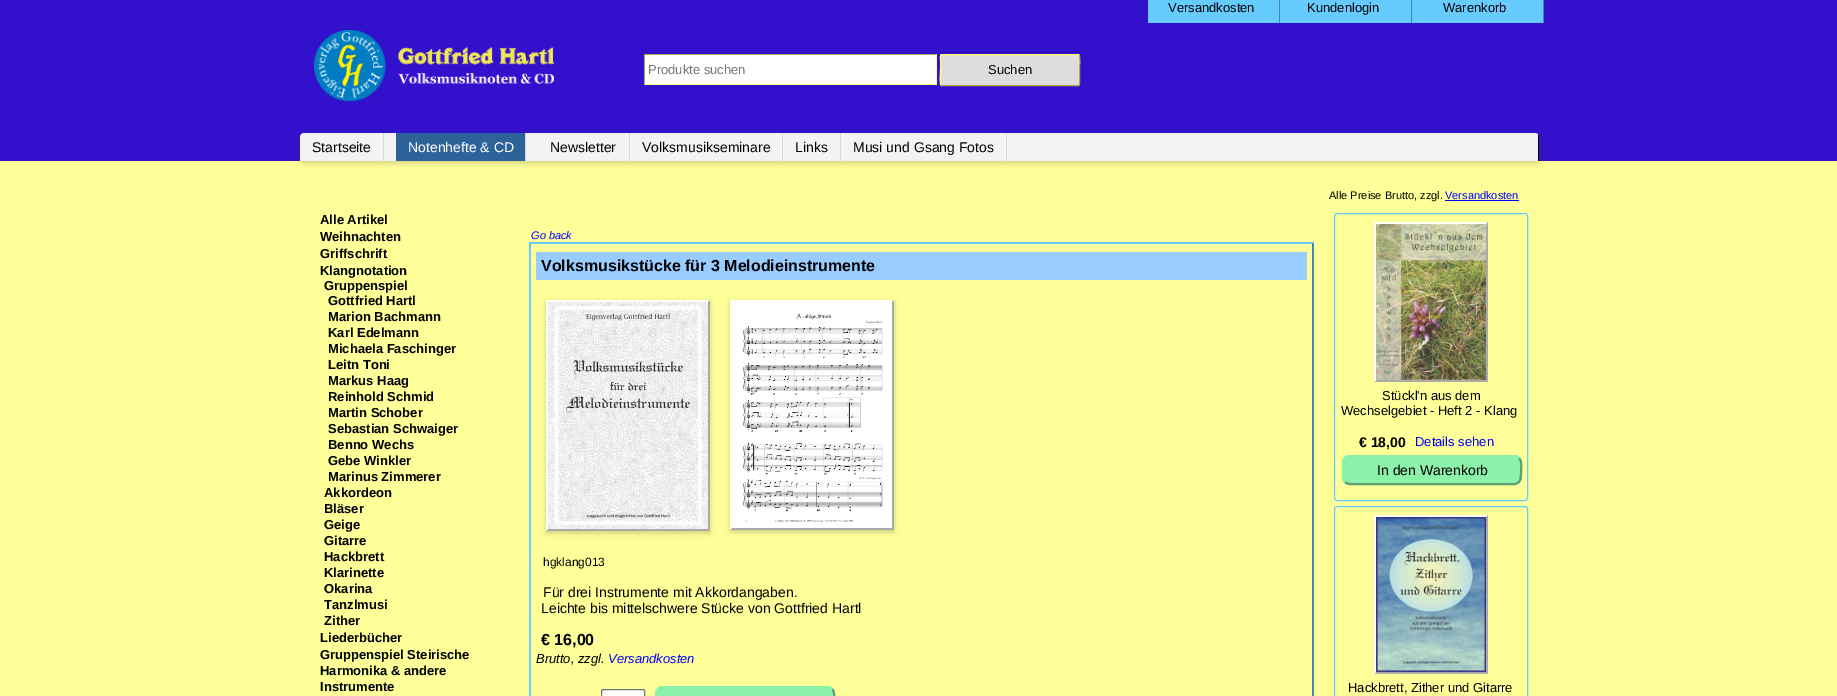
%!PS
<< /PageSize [1837 696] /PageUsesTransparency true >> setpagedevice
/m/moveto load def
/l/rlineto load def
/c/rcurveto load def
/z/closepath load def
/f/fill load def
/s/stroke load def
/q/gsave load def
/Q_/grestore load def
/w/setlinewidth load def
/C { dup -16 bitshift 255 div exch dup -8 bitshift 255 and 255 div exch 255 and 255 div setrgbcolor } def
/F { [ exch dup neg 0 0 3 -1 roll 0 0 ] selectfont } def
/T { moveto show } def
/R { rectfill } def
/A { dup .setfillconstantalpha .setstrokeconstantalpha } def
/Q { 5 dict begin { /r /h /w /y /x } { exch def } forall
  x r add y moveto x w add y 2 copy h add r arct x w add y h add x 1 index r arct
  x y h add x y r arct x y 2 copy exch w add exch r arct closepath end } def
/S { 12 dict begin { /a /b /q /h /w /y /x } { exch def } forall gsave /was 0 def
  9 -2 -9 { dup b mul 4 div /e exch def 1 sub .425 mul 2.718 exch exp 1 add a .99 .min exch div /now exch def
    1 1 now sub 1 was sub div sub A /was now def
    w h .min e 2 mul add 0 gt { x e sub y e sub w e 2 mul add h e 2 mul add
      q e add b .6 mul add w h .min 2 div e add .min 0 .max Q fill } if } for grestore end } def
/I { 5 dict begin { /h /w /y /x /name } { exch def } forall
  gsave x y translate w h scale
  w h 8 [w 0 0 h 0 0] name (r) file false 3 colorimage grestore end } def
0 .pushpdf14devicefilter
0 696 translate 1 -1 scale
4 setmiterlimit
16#FFFF99 C
0 0 1837 696 R
16#3311CC C
0 0 1837 161 R
16#66CCFF C
1148 0 131 23 R
16#4488AA C
1279 0 1 23 R
/LiberationSans-Regular 13 F
16#000000 C
(Versandkosten) 1168 12 T
16#66CCFF C
1280 0 131 23 R
16#4488AA C
1411 0 1 23 R
16#000000 C
(Kundenlogin) 1307 12 T
16#66CCFF C
1412 0 131 23 R
16#4488AA C
1543 0 1 23 R
16#000000 C
(Warenkorb) 1443 12 T
(1.rgb) 314 30 240 71 I
16#FFFFFF C
645 55 291 29 R
16#AAAA44 C
644 54 293 1 R
16#FFFF66 C
936 54 1 31 R
644 84 293 1 R
16#AAAA44 C
644 54 1 31 R
16#757575 C
(Produkte suchen) 648 74 T
16#DDDDDD C
940 54 140 32 2 Q f
16#AAAA44 C
1079 55 m 1.5 1.5 .5 12.5 .5 15 c 0 9.5 l 0 .5 1 6 -1.5 6 c -136 0 l -1 -.5 l s
16#FFFF66 C
941 85 m -1.5 -1.5 -.5 -12.5 -.5 -15 c 0 -9.5 l 0 -.5 -1 -6 1.5 -6 c 136 0 l 1 .5 l s
16#000000 C
(Suchen) 988 74 T
16#444444 C
300 135 1239 28 4 3 .3 S
16#F3F3F3 C
304 133 m 1231 0 l 2 0 4 2 4 4 c 0 24 l -1239 0 l 0 -24 l 0 -2 2 -4 4 -4 c z f
16#000000 C
1538 135 1 26 R
16#D9D9D9 C
383 133 1 28 R
/LiberationSans-Regular 14 F
16#000000 C
(Startseite) 312 152 T
16#2E6399 C
396 133 129 28 R
16#D9D9D9 C
525 133 1 28 R
16#FFFFFF C
(Notenhefte & CD) 408 152 T
16#D9D9D9 C
629 133 1 28 R
16#000000 C
(Newsletter) 550 152 T
16#D9D9D9 C
782 133 1 28 R
16#000000 C
(Volksmusikseminare) 642 152 T
16#D9D9D9 C
840 133 1 28 R
16#000000 C
(Links) 795 152 T
16#D9D9D9 C
1006 133 1 28 R
16#000000 C
(Musi und Gsang Fotos) 853 152 T
/LiberationSans-Bold 13 F
(Alle Artikel) 320 224 T
(Weihnachten) 320 241 T
(Griffschrift) 320 258 T
(Klangnotation) 320 275 T
(Gruppenspiel) 324 290 T
(Gottfried Hartl) 328 305 T
(Marion Bachmann) 328 321 T
(Karl Edelmann) 328 337 T
(Michaela Faschinger) 328 353 T
(Leitn Toni) 328 369 T
(Markus Haag) 328 385 T
(Reinhold Schmid) 328 401 T
(Martin Schober) 328 417 T
(Sebastian Schwaiger) 328 433 T
(Benno Wechs) 328 449 T
(Gebe Winkler) 328 465 T
(Marinus Zimmerer) 328 481 T
(Akkordeon) 324 497 T
(Bläser) 324 513 T
(Geige) 324 529 T
(Gitarre) 324 545 T
(Hackbrett) 324 561 T
(Klarinette) 324 577 T
(Okarina) 324 593 T
(Tanzlmusi) 324 609 T
(Zither) 324 625 T
(Liederbücher) 320 642 T
(Gruppenspiel Steirische) 320 659 T
(Harmonika & andere) 320 675 T
(Instrumente) 320 691 T
/LiberationSans-Italic 11 F
16#0000FF C
(Go back) 531 239 T
16#66CCFF C
529 242 m 785 0 l -2 2 l -781 0 l z f
16#4488AA C
1314 242 m 0 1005 l -2 -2 l 0 -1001 l z f
16#66CCFF C
529 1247 m 0 -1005 l 2 2 l 0 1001 l z f
16#99CCFF C
536 252 771 28 R
/LiberationSans-Bold 16 F
16#000000 C
(Volksmusikstücke für 3 Melodieinstrumente) 541 271 T
16#444444 C
546 302 164 231 0 3 .3 S
16#FFFFFF C
546 300 m 164 0 l -2 2 l -160 0 l z f
16#AAAAAA C
710 300 m 0 231 l -2 -2 l 0 -227 l z f
710 531 m -164 0 l 2 -2 l 160 0 l z f
16#FFFFFF C
546 531 m 0 -231 l 2 2 l 0 227 l z f
(2.rgb) 548 302 160 227 I
16#444444 C
730 302 164 230 0 3 .3 S
16#FFFFFF C
730 300 m 164 0 l -2 2 l -160 0 l z f
16#AAAAAA C
894 300 m 0 230 l -2 -2 l 0 -226 l z f
894 530 m -164 0 l 2 -2 l 160 0 l z f
16#FFFFFF C
730 530 m 0 -230 l 2 2 l 0 226 l z f
(3.rgb) 732 302 160 226 I
/LiberationSans-Regular 12 F
16#000000 C
(hgklang013) 543 566 T
/LiberationSans-Regular 14 F
(Für drei Instrumente mit Akkordangaben.) 543 597 T
(Leichte bis mittelschwere Stücke von Gottfried Hartl) 541 613 T
/LiberationSans-Bold 16 F
(€ 16,00) 541 645 T
/LiberationSans-Italic 13 F
(Brutto, zzgl.) 536 663 T
16#0000FF C
(Versandkosten) 608 663 T
16#FFFFFF C
601.5 689.5 43 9 1.5 Q q f Q_
16#767676 C
s
16#8DF2A9 C
655 686 180 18 8 Q f
16#5EA171 C
2 w
832 689 m 3.5 3.5 2 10 2 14.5 c 0 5 0 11.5 -7 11.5 c -164 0 l -2 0 -3.5 -.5 -5 -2 c s
16#8DF2A9 C
658 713 m -3.5 -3.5 -2 -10 -2 -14.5 c 0 -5 0 -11.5 7 -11.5 c 164 0 l 2 0 3.5 .5 5 2 c s
/LiberationSans-Regular 11 F
16#000000 C
(Alle Preise Brutto, zzgl.) 1329 199 T
16#0000FF C
(Versandkosten) 1445 199 T
1445 200 74 1 R
16#66CCFF C
1 w
1334.5 213.5 193 287 2.5 Q s
16#FFFFFF C
1374 222 m 114 0 l -2 2 l -110 0 l z f
16#AAAAAA C
1488 222 m 0 160 l -2 -2 l 0 -156 l z f
1488 382 m -114 0 l 2 -2 l 110 0 l z f
16#FFFFFF C
1374 382 m 0 -160 l 2 2 l 0 156 l z f
(4.rgb) 1376 224 110 156 I
/LiberationSans-Regular 13 F
16#000000 C
(Stückl'n aus dem) 1382 400 T
(Wechselgebiet - Heft 2 - Klang) 1341 415 T
/LiberationSans-Bold 14 F
(€ 18,00) 1359 447 T
/LiberationSans-Regular 13 F
16#0000FF C
(Details sehen) 1415 446 T
16#8DF2A9 C
1342 455 180 30 8 Q f
16#5EA171 C
2 w
1519 458 m 3.5 3.5 2 10 2 14.5 c 0 5 0 11.5 -7 11.5 c -164 0 l -2 0 -3.5 -.5 -5 -2 c s
16#8DF2A9 C
1345 482 m -3.5 -3.5 -2 -10 -2 -14.5 c 0 -5 0 -11.5 7 -11.5 c 164 0 l 2 0 3.5 .5 5 2 c s
/LiberationSans-Regular 14 F
16#000000 C
(In den Warenkorb) 1377 475 T
16#66CCFF C
1 w
1334.5 506.5 193 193 2.5 Q s
16#FFFFFF C
1374 515 m 114 0 l -2 2 l -110 0 l z f
16#AAAAAA C
1488 515 m 0 159 l -2 -2 l 0 -155 l z f
1488 674 m -114 0 l 2 -2 l 110 0 l z f
16#FFFFFF C
1374 674 m 0 -159 l 2 2 l 0 155 l z f
(5.rgb) 1376 517 110 155 I
/LiberationSans-Regular 13 F
16#000000 C
(Hackbrett, Zither und Gitarre) 1348 692 T
.poppdf14devicefilter showpage
